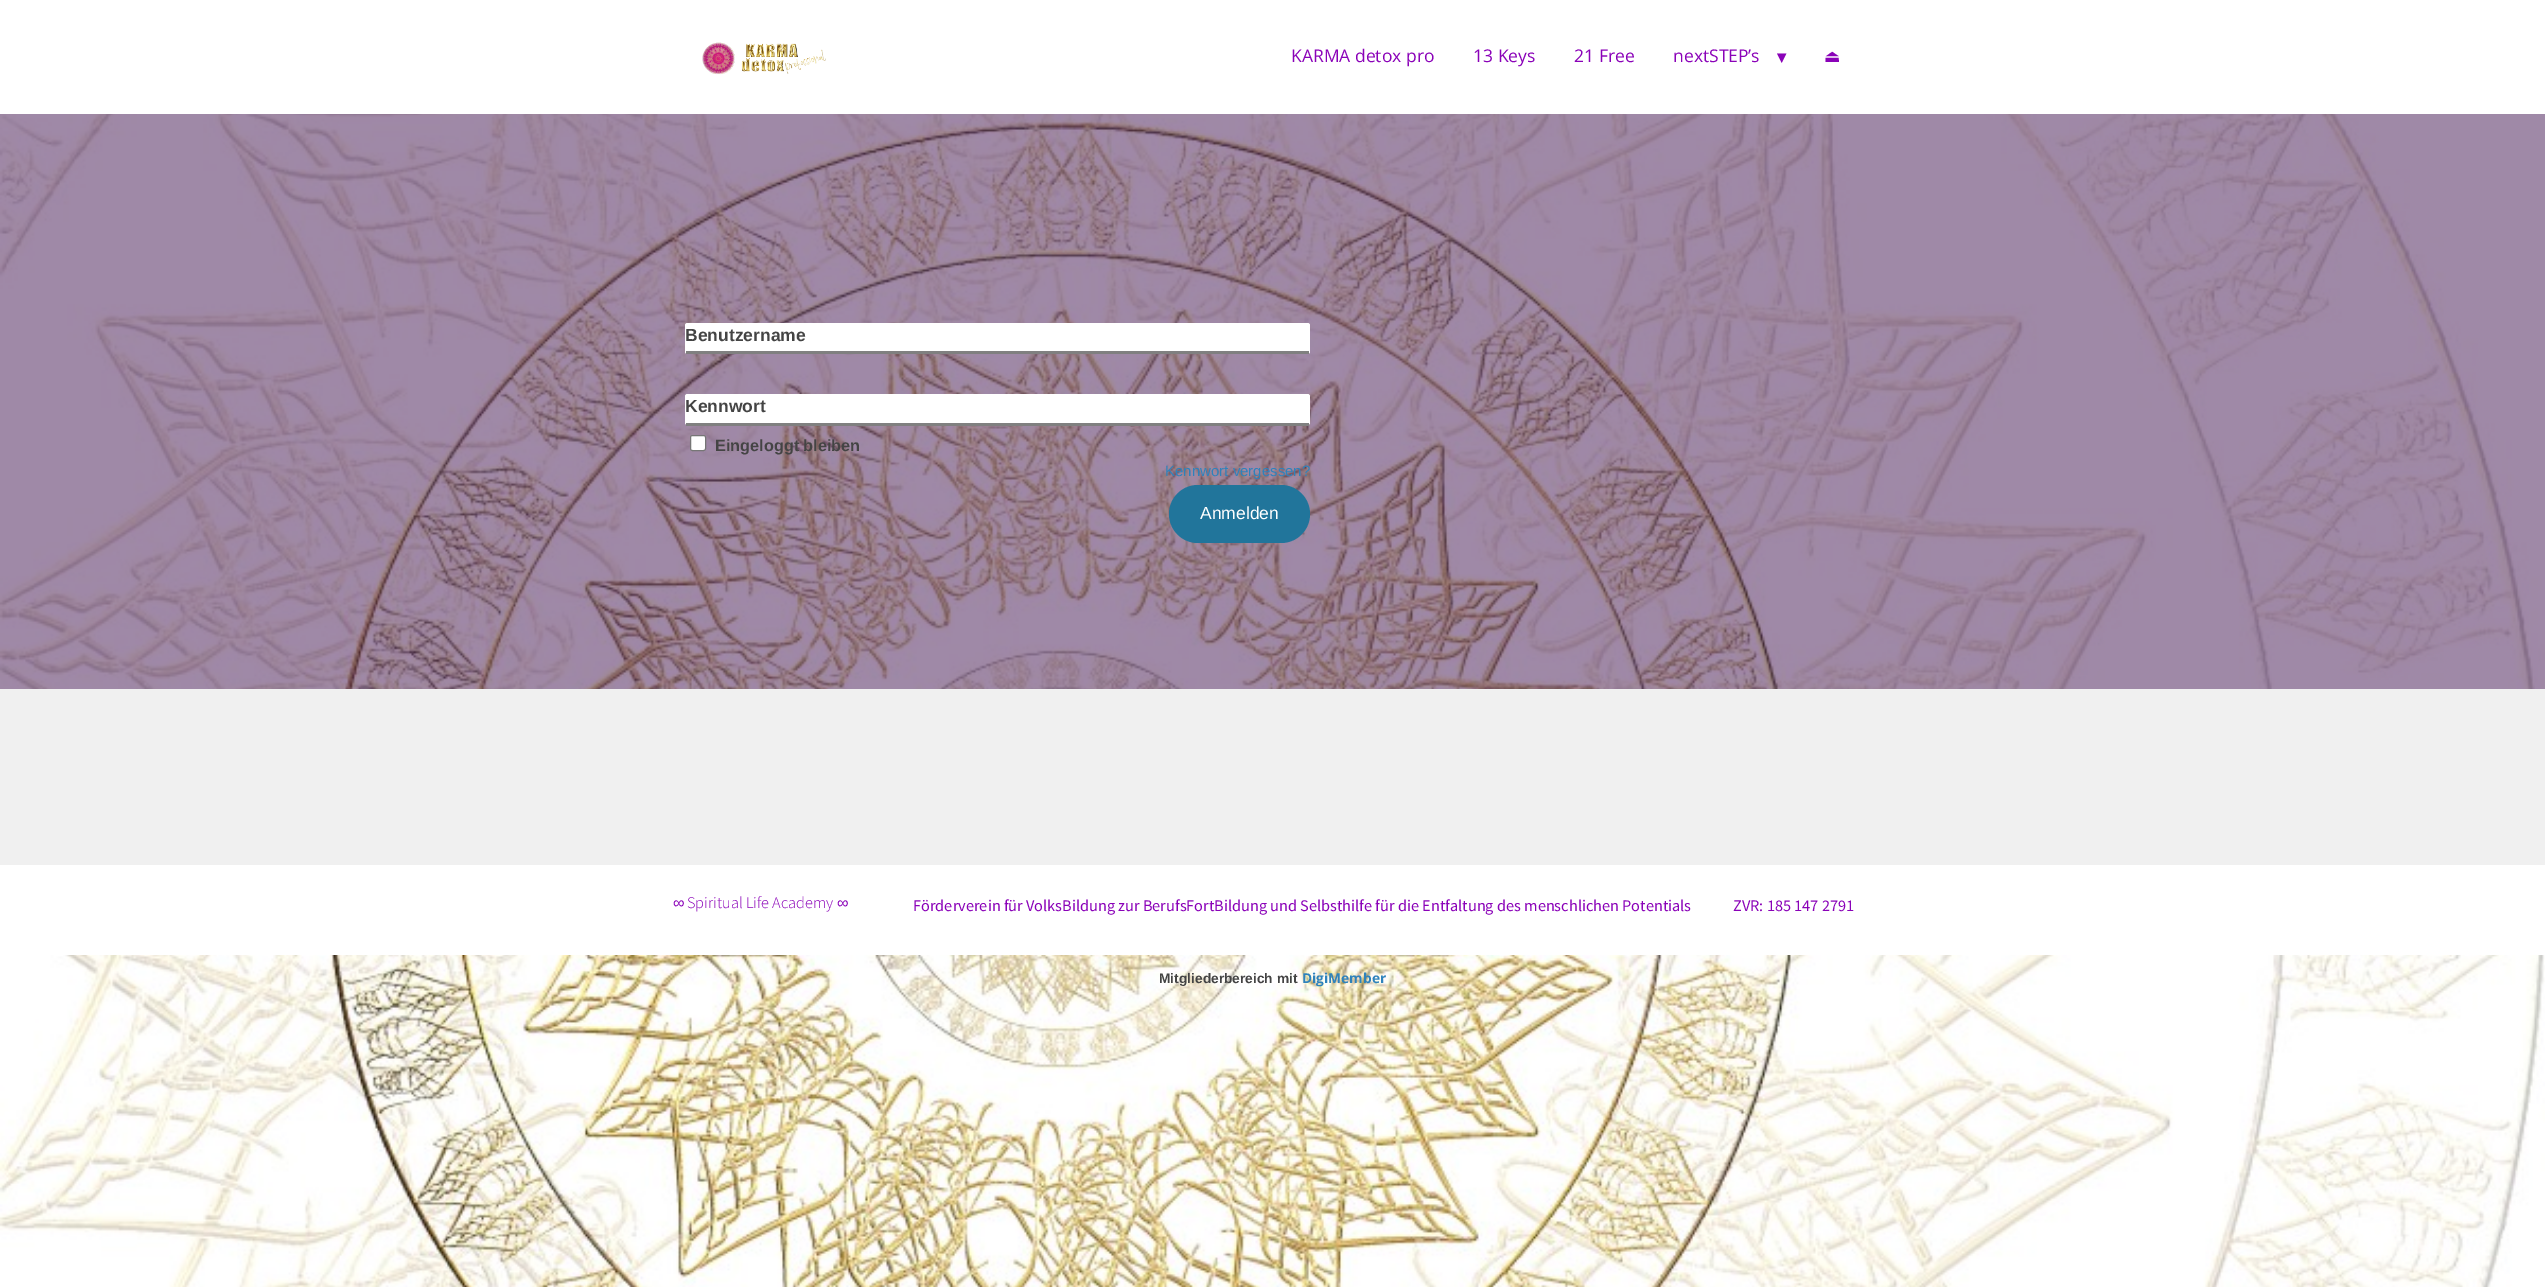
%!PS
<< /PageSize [2545 1287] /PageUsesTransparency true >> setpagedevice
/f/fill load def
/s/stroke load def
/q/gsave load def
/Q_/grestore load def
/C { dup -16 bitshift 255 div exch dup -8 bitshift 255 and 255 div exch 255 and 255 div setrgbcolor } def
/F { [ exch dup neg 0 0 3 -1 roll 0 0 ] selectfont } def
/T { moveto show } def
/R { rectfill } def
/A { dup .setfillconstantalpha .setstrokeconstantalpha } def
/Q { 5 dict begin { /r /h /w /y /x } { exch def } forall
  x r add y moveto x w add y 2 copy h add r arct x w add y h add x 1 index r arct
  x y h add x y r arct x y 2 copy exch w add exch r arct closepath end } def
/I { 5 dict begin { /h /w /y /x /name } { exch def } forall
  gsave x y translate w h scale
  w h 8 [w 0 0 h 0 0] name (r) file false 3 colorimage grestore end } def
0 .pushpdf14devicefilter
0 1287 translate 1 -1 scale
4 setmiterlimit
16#FFFFFF C
0 0 2545 1287 R
(1.rgb) 0 114 2545 1173 I
(2.rgb) 702 42 124 33 I
/OpenSans-Regular 17.5 F
16#8A02B8 C
(KARMA detox pro) 1291 62 T
(13 Keys) 1473 62 T
(21 Free) 1574 62 T
(nextSTEP’s) 1673 62 T
/DejaVuSans-Bold 17.5 F
(▾) 1777 63 T
/DejaVuSans-Regular 17.5 F
(⏏) 1824 62 T
0.5 A
16#40134F C
0 114 2545 575 R
1 A
16#FFFFFF C
685 323 625 31 2.5 Q f
16#808080 C
686 351 623 3 R
/LiberationSans-Bold 17.5 F
16#444444 C
(Benutzername) 685 341 T
16#FFFFFF C
685 394 625 31 2.5 Q f
16#808080 C
686 423 623 3 R
16#444444 C
(Kennwort) 685 412 T
16#FFFFFF C
690.5 435.5 15 15 2 Q q f Q_
16#767676 C
s
/LiberationSans-Bold 16.25 F
16#444444 C
(Eingeloggt bleiben) 715 451 T
/LiberationSans-Regular 15 F
16#2E82BC C
(Kennwort vergessen?) 1165 476 T
16#21759B C
1169 485 141 58 29 Q f
/LiberationSans-Regular 17.5 F
16#FFFFFF C
(Anmelden) 1200 519 T
16#F0F0F0 C
0 689 2545 176 R
16#FFFFFF C
0 865 2545 90 R
/LiberationSans-Regular 16.25 F
16#8A02B8 C
(∞) 673 908 T
/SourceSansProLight-Light 16.25 F
(Spiritual Life Academy) 687 908 T
/LiberationSans-Regular 16.25 F
(∞) 837 908 T
/SourceSansPro-Regular 16.25 F
(Förderverein für VolksBildung zur BerufsFortBildung und Selbsthilfe für die Entfaltung des menschlichen Potentials) 913 911 T
(ZVR: 185 147 2791) 1733 911 T
/LiberationSans-Bold 13.75 F
16#444444 C
(Mitgliederbereich mit) 1159 983 T
/OpenSans-Bold 13.75 F
16#2E82BC C
(DigiMember) 1302 983 T
.poppdf14devicefilter showpage
